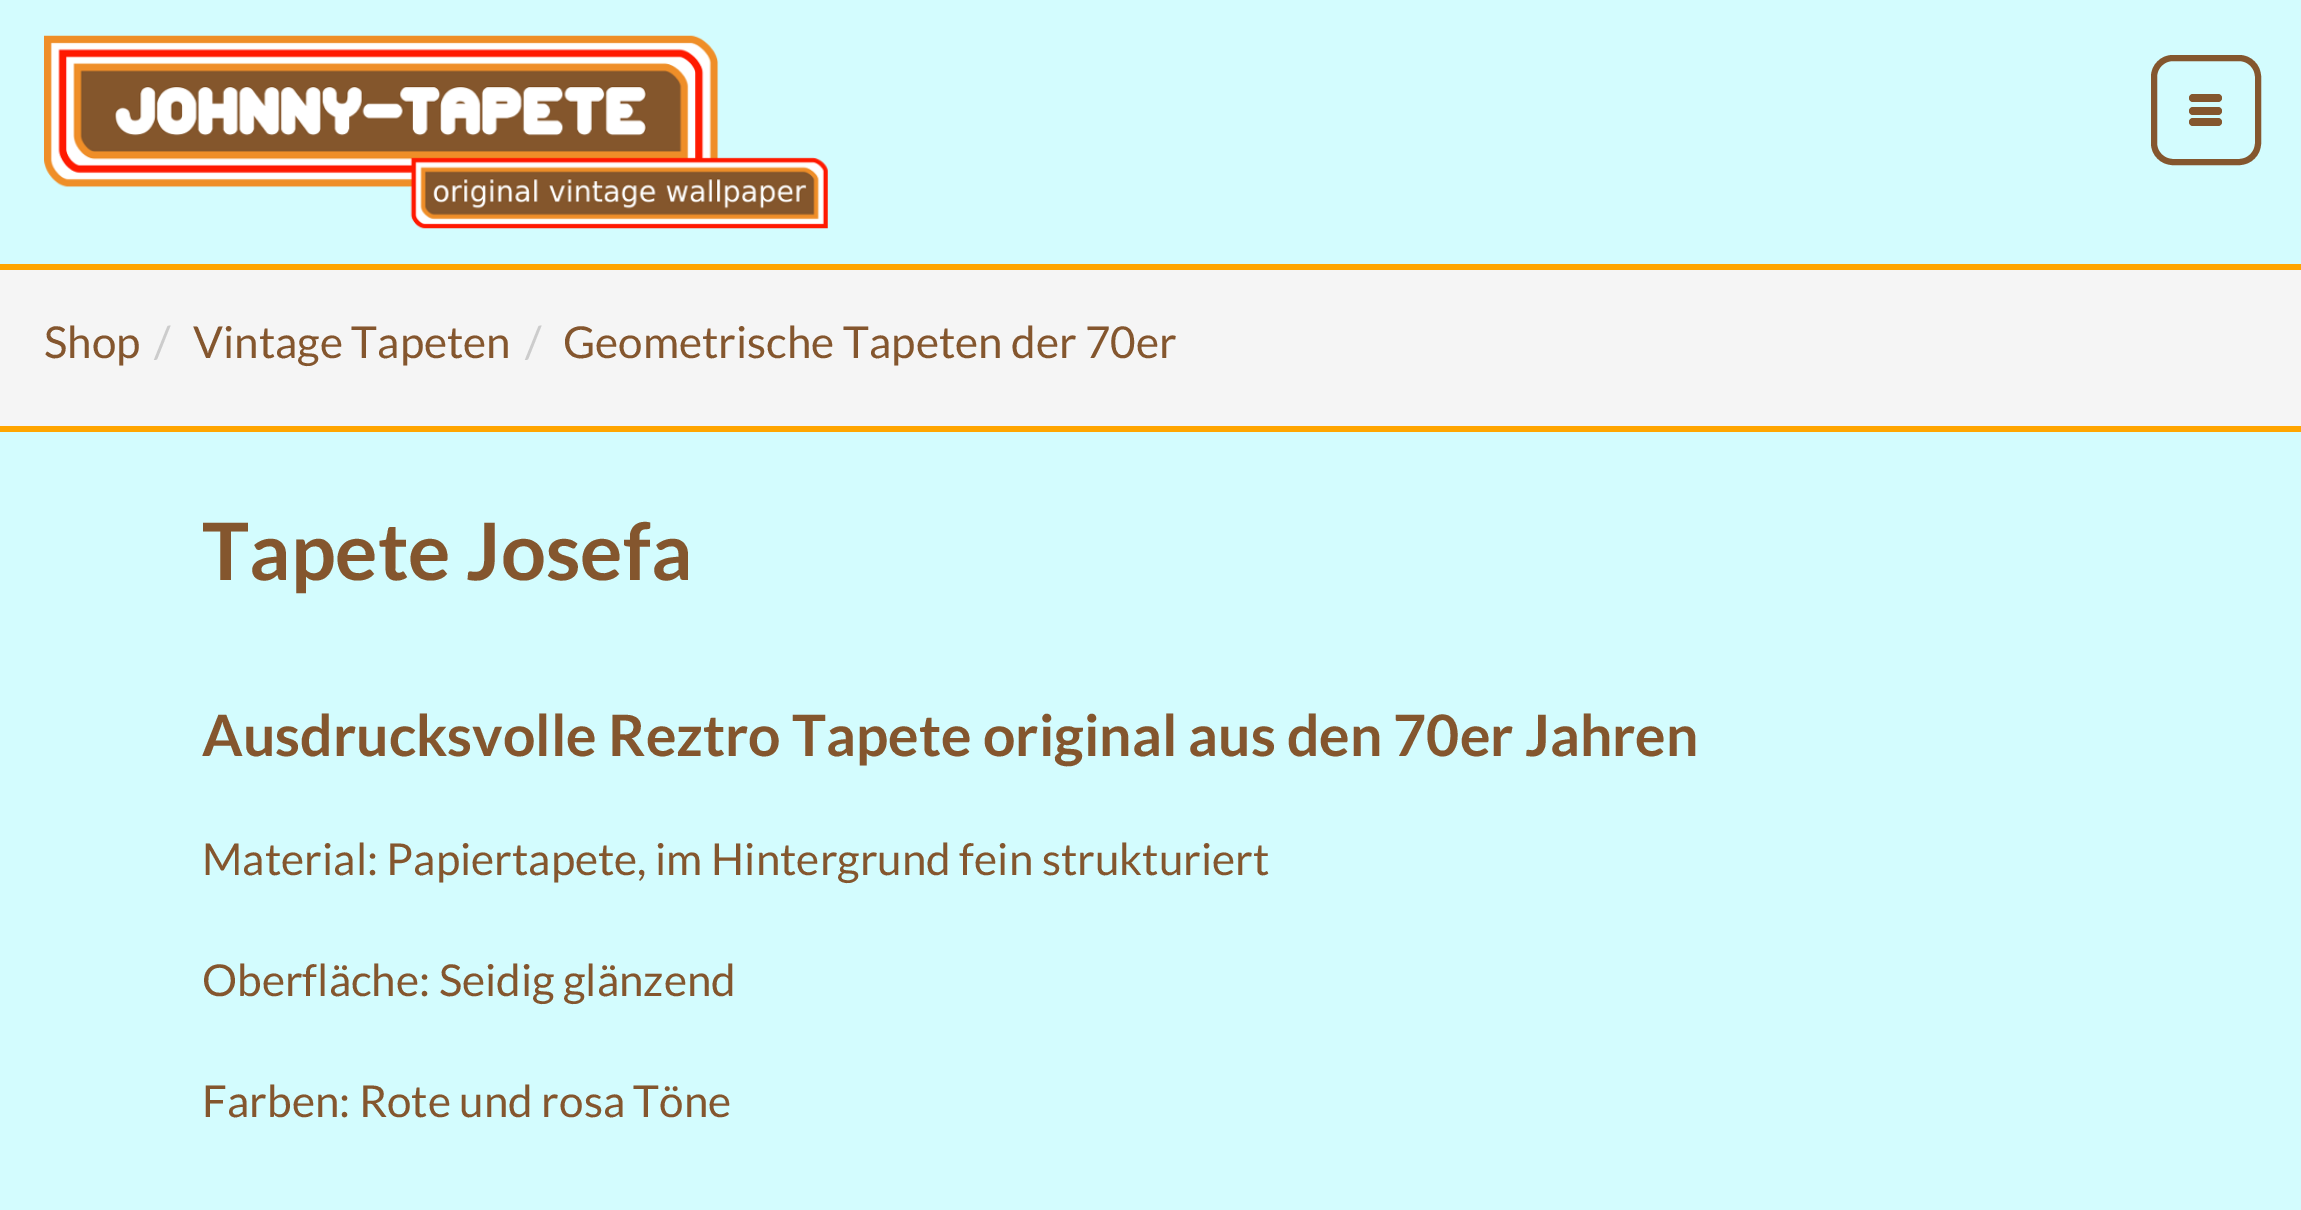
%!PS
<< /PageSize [2301 1210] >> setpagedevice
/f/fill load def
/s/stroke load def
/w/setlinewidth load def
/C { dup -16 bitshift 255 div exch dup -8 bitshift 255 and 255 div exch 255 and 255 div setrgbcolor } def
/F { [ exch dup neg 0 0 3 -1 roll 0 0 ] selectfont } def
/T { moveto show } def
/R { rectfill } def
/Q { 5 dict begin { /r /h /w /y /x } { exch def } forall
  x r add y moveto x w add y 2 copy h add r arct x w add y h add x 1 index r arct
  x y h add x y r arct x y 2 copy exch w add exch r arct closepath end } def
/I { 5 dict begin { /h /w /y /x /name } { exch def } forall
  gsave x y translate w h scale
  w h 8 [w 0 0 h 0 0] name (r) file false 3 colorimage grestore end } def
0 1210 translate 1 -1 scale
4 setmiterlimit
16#D3FCFE C
0 0 2301 1210 R
(1.rgb) 44 35 784 194 I
16#84562E C
6 w
2154 58 104 104 19 Q s
2189 94 33 8 4 Q f
2189 107 33 8 4 Q f
2189 118 33 8 4 Q f
16#F5F5F5 C
0 270 2301 156 R
16#FFA500 C
0 264 2301 6 R
0 426 2301 6 R
/Lato-Regular 44 F
16#84562E C
(Shop) 44 358 T
16#CCCCCC C
(/) 154 358 T
16#84562E C
(Vintage Tapeten) 193 358 T
16#CCCCCC C
(/) 525 358 T
16#84562E C
(Geometrische Tapeten der 70er) 563 358 T
/Lato-Bold 79.25 F
(Tapete Josefa) 202 580 T
/Lato-Bold 57.2 F
(Ausdrucksvolle Reztro Tapete original aus den 70er Jahren) 202 756 T
/Lato-Regular 44 F
(Material: Papiertapete, im Hintergrund fein strukturiert) 202 875 T
(Oberfläche: Seidig glänzend) 202 996 T
(Farben: Rote und rosa Töne) 202 1117 T
showpage
